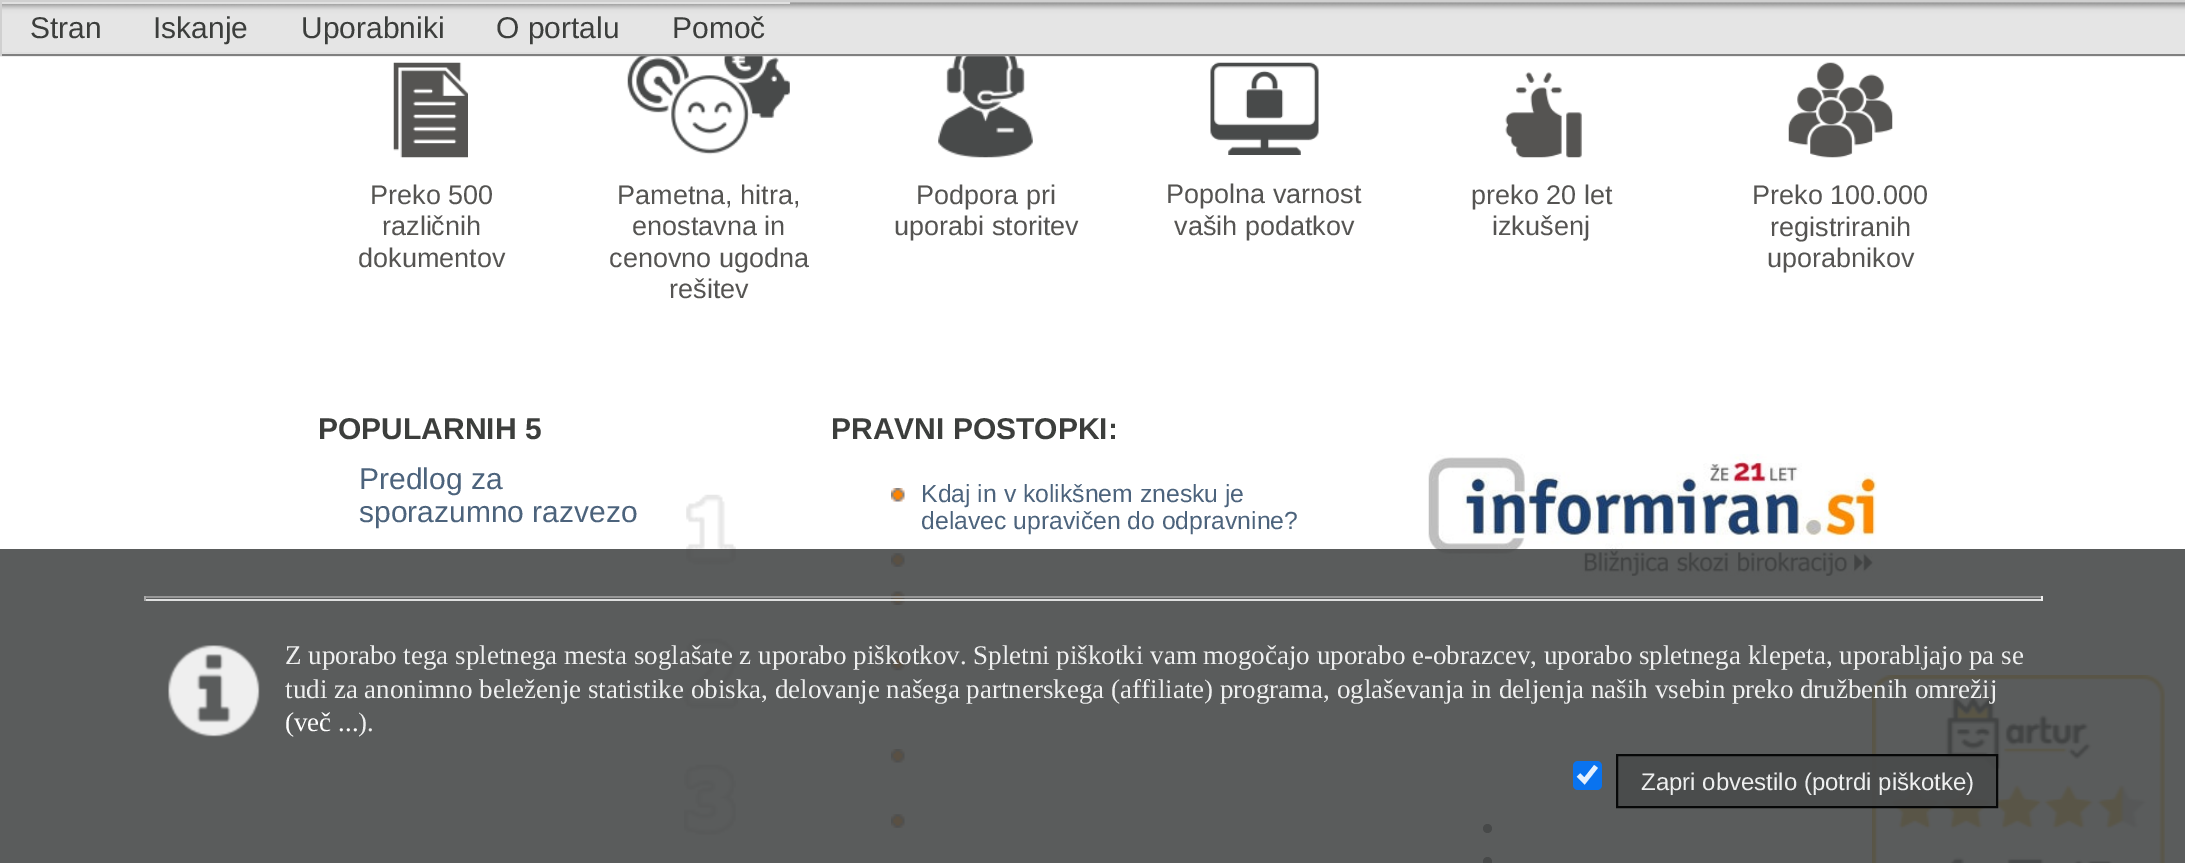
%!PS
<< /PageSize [2185 863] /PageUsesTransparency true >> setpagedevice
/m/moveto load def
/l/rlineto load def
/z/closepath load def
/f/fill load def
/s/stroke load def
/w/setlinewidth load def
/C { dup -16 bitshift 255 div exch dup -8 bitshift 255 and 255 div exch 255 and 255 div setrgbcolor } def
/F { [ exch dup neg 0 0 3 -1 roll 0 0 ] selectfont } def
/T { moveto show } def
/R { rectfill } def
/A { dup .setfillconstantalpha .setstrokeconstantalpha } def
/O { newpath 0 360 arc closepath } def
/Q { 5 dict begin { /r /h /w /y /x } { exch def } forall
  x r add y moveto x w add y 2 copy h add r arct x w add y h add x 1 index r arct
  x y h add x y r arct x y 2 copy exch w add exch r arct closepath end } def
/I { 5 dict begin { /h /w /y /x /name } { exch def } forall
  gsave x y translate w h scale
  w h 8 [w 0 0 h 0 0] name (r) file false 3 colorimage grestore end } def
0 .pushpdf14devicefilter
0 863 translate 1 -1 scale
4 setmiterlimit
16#FFFFFF C
0 0 2185 863 R
(3.rgb) 627 56 163 99 I
(4.rgb) 938 56 95 102 I
(1.rgb) 0 2 2185 55 I
16#D0D0D0 C
0 0 2185 2 R
16#808080 C
0 54 2185 2 R
16#D0D0D0 C
0 0 2 56 R
16#E0E0E0 C
2 2 788 2 R
2 52 788 2 R
/LiberationSans-Regular 30 F
16#3C3E3C C
(Stran) 30 38 T
(Iskanje) 153 38 T
(Uporabniki) 301 38 T
(O portalu) 496 38 T
(Pomoč) 672 38 T
(2.rgb) 393 62 75 96 I
/LiberationSans-Regular 27 F
16#555452 C
(Preko 500) 370 204 T
(različnih) 382 235 T
(dokumentov) 358 267 T
(Pametna, hitra,) 617 204 T
(enostavna in) 632 235 T
(cenovno ugodna) 609 267 T
(rešitev) 669 298 T
(Podpora pri) 916 204 T
(uporabi storitev) 894 235 T
(5.rgb) 1210 62 109 93 I
(Popolna varnost) 1166 203 T
(vaših podatkov) 1174 235 T
(6.rgb) 1505 72 77 86 I
(preko 20 let) 1471 204 T
(izkušenj) 1492 235 T
(7.rgb) 1788 62 105 96 I
(Preko 100.000) 1752 204 T
(registriranih) 1770 236 T
(uporabnikov) 1767 267 T
/LiberationSans-Bold 30 F
16#3C3E3C C
(POPULARNIH 5) 318 439 T
(PRAVNI POSTOPKI:) 831 439 T
/LiberationSans-Regular 30 F
16#4C637C C
(Predlog za) 359 489 T
(sporazumno razvezo) 359 522 T
(8.rgb) 686 494 50 71 I
(9.rgb) 684 638 54 71 I
(10.rgb) 684 764 52 71 I
(11.rgb) 891 488 14 14 I
/LiberationSans-Regular 24.75 F
(Kdaj in v kolikšnem znesku je) 921 502 T
(delavec upravičen do odpravnine?) 921 529 T
(12.rgb) 891 553 14 14 I
(13.rgb) 891 591 14 14 I
(14.rgb) 891 656 14 15 I
(11.rgb) 891 749 14 14 I
(12.rgb) 891 814 14 14 I
(15.rgb) 1428 454 449 122 I
16#3C3E3C C
1487.5 828.5 4.5 O f
1487.5 861.5 4.5 O f
(16.rgb) 1872 675 293 188 I
0.9 A
16#484A4A C
0 549 2185 314 R
16#9F9F9F C
144 596 1899 2 R
1 A
16#F0F0F0 C
2041 596 2 5 R
0.9 A
16#EEEEEE C
144 599 1899 2 R
1 A
16#A9A9A9 C
144 596 2 5 R
(17.rgb) 168 645 92 92 I
/LiberationSerif-Regular 27 F
16#EEEFEF C
(Z uporabo tega spletnega mesta soglašate z uporabo piškotkov. Spletni piškotki vam mogočajo uporabo e-obrazcev, uporabo spletnega klepeta, uporabljajo pa se) 285 664 T
(tudi za anonimno beleženje statistike obiska, delovanje našega partnerskega \(affiliate\) programa, oglaševanja in deljenja naših vsebin preko družbenih omrežij) 285 698 T
16#FFFFFF C
(\(več ...) 285 731 T
16#EEEFEF C
(\)) 358 731 T
(.) 367 731 T
0.9 A
16#0075FF C
1573 761 29 29 5 Q f
1 A
16#E6F1FD C
4.7 w
1578.5 775 m 6 6 l 11.5 -14.5 l s
0.9 A
16#484A4A C
1617 755 m 380 0 l 0 52 l -380 0 l z f
1 A
16#070808 C
2 w
1617 755 m 380 0 l 0 52 l -380 0 l z s
/LiberationSans-Regular 24 F
16#EEEFEF C
(Zapri obvestilo \(potrdi piškotke\)) 1641 790 T
.poppdf14devicefilter showpage
